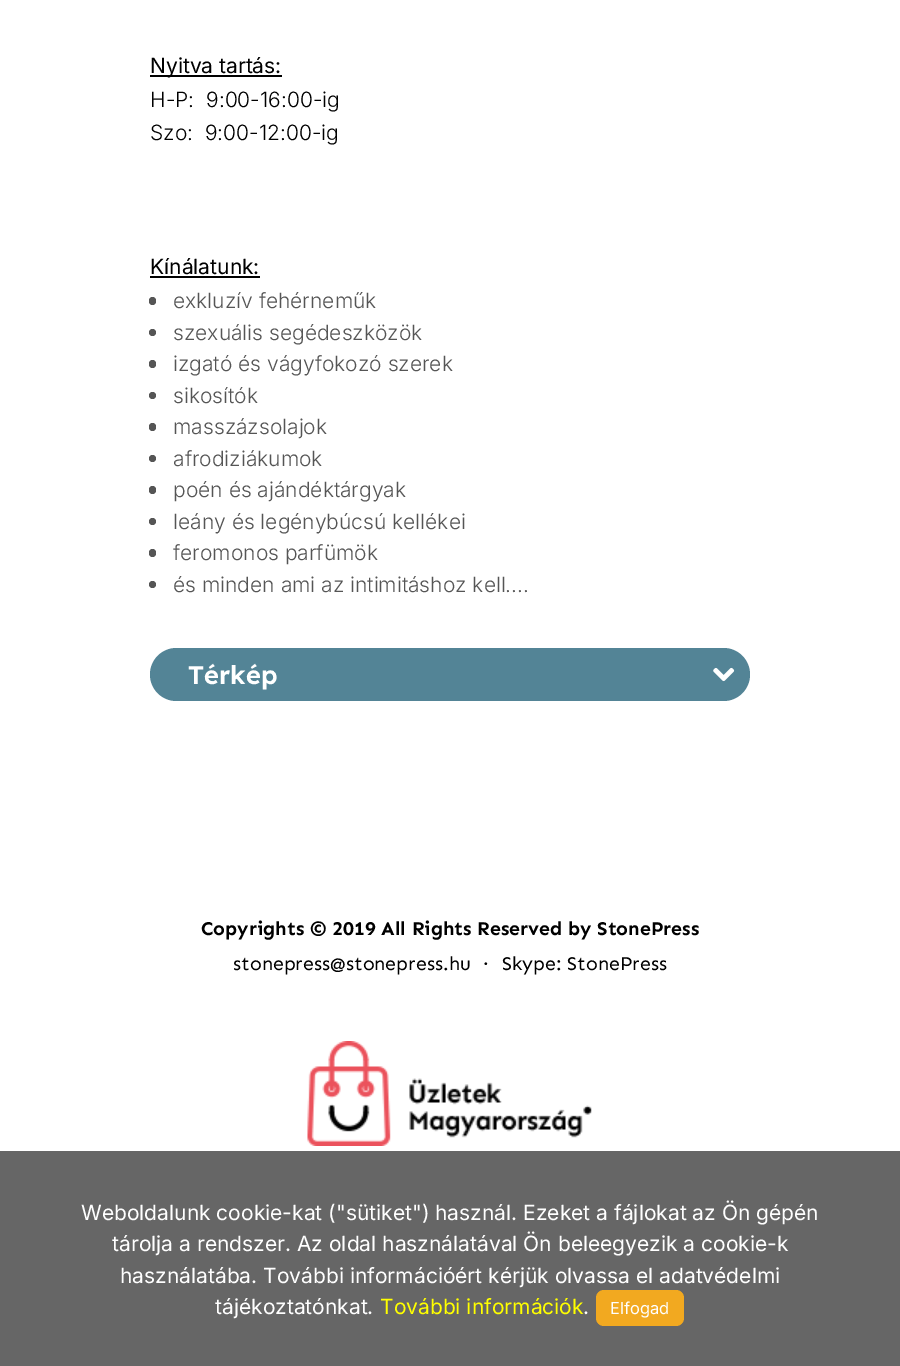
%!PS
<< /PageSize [900 1366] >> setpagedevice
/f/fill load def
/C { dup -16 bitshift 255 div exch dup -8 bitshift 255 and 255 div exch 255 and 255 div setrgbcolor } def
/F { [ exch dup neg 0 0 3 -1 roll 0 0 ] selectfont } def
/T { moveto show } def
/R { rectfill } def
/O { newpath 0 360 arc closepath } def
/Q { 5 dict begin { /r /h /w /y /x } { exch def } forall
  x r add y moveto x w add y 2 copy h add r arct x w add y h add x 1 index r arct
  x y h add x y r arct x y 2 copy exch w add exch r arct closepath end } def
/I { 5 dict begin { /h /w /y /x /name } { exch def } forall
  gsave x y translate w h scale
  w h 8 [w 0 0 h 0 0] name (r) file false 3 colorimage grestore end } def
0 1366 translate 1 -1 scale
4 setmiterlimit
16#FFFFFF C
0 0 900 1366 R
16#000000 C
150 75 132 2 R
/Inter-Regular 21 F
(Nyitva tartás:) 150 73 T
/Inter-Light 21 F
(H-P:  9:00-16:00-ig) 150 107 T
(Szo:  9:00-12:00-ig) 150 140 T
/Inter-Regular 21 F
(Kínálatunk:) 150 274 T
150 276 110 2 R
16#555555 C
149 297 7 8 3.5 Q f
/Inter-Light 21 F
(exkluzív fehérneműk) 173 308 T
152.5 332.5 3.5 O f
(szexuális segédeszközök) 173 340 T
149 360 7 8 3.5 Q f
(izgató és vágyfokozó szerek) 173 371 T
152.5 395.5 3.5 O f
(sikosítók) 173 403 T
149 423 7 8 3.5 Q f
(masszázsolajok) 173 434 T
152.5 458.5 3.5 O f
(afrodiziákumok) 173 466 T
149 486 7 8 3.5 Q f
(poén és ajándéktárgyak) 173 497 T
152.5 521.5 3.5 O f
(leány és legénybúcsú kellékei) 173 529 T
149 549 7 8 3.5 Q f
(feromonos parfümök) 173 560 T
152.5 584.5 3.5 O f
(és minden ami az intimitáshoz kell....) 173 592 T
16#538496 C
150 648 600 53 26.5 Q f
/Lexend-SemiBold 25.5 F
16#FFFFFF C
(Térkép) 188 684 T
(1.rgb) 713 667 22 15 I
/Sen-Bold 19.5 F
16#000000 C
(Copyrights © 2019 All Rights Reserved by StonePress) 201 935 T
/Sen-Regular 19.5 F
(stonepress@stonepress.hu) 233 970 T
(·) 483 970 T
(Skype: StonePress) 502 970 T
(2.rgb) 307 1041 285 105 I
16#666666 C
0 1151 900 215 R
/Inter-Regular 21 F
16#FFFFFF C
(Weboldalunk cookie-kat \("sütiket"\) használ. Ezeket a fájlokat az Ön gépén) 81 1220 T
(tárolja a rendszer. Az oldal használatával Ön beleegyezik a cookie-k) 112 1251 T
(használatába. További információért kérjük olvassa el adatvédelmi) 120 1283 T
(tájékoztatónkat.) 215 1314 T
16#FFFF00 C
(További információk) 380 1314 T
16#FFFFFF C
(.) 583 1314 T
16#F2A920 C
596 1290 88 36 8 Q f
/Inter-Regular 16.5 F
16#FFFFFF C
(Elfogad) 610 1314 T
showpage
